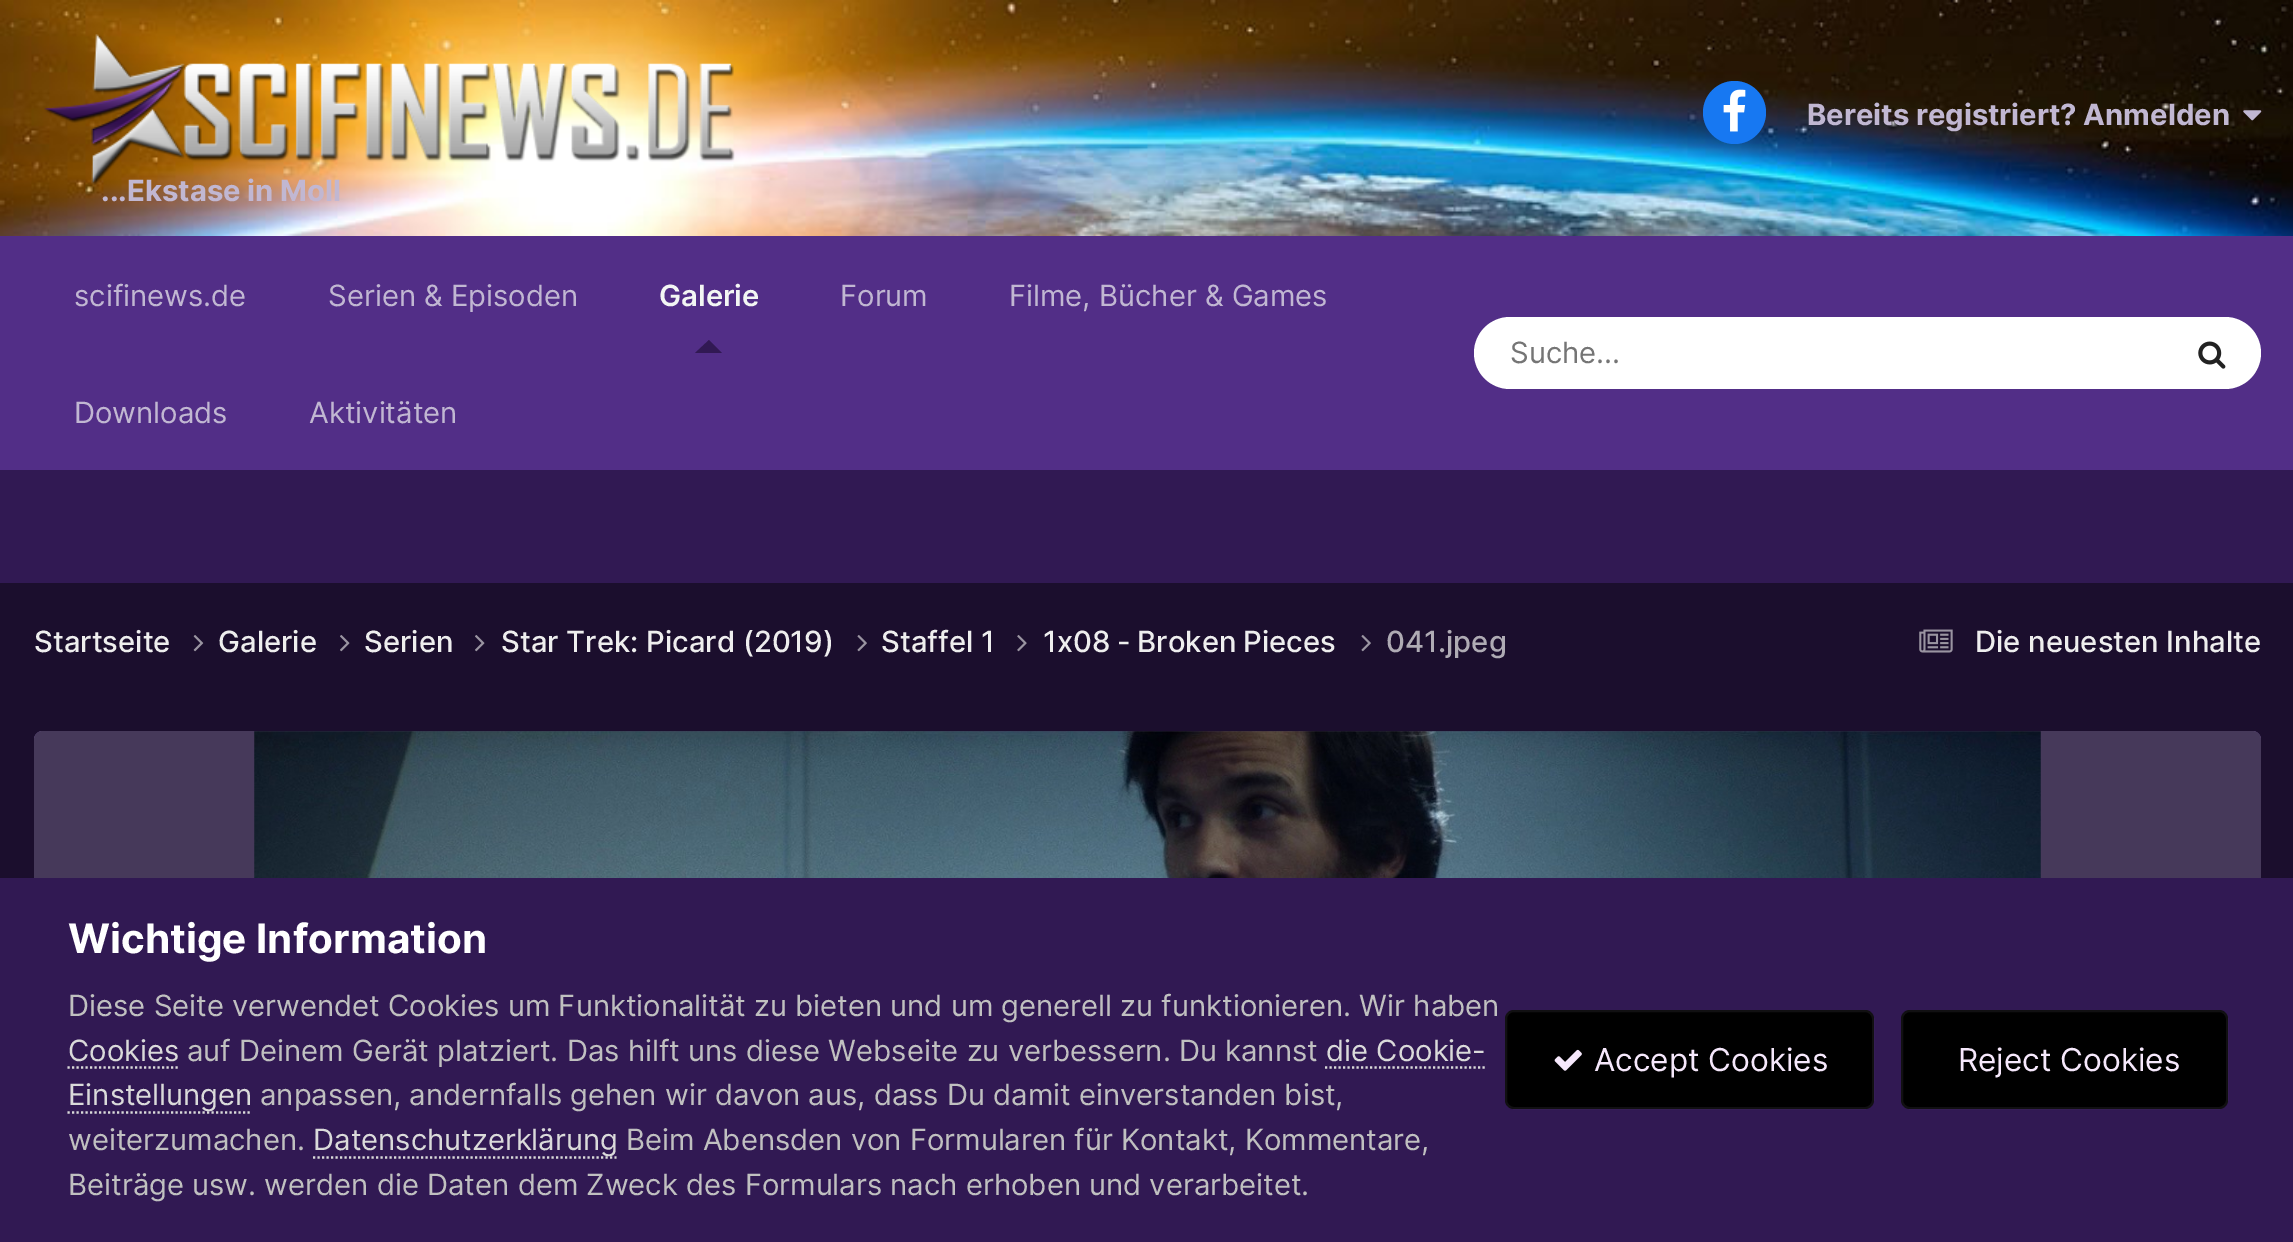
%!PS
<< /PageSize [2293 1242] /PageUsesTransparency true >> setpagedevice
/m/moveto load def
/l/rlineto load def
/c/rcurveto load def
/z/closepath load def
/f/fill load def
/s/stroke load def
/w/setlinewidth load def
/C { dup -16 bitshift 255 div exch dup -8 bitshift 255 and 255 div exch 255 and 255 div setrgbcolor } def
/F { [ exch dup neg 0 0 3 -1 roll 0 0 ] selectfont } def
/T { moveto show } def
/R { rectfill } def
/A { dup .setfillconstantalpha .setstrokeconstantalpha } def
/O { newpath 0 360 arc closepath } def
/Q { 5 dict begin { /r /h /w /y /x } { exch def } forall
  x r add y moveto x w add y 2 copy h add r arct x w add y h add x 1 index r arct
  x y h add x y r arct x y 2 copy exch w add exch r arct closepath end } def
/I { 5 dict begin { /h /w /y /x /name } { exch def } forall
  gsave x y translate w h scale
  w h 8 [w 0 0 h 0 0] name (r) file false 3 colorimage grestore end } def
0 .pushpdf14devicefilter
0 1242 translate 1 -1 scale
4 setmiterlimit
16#1B0E2D C
0 0 2293 1242 R
(1.rgb) 0 0 2293 236 I
(2.rgb) 44 34 691 152 I
16#1778F2 C
1734.5 112.5 31.5 O f
(3.rgb) 1723 89 23 43 I
/Inter-Bold 29.25 F
16#C1B7D2 C
(Bereits registriert? Anmelden) 1807 125 T
(4.rgb) 2243 110 19 11 I
(...Ekstase in Moll) 101 201 T
16#522E87 C
0 236 2293 234 R
/Inter-Regular 29.25 F
16#C1B7D2 C
(scifinews.de) 74 306 T
(Serien & Episoden) 328 306 T
/Inter-SemiBold 29.25 F
16#F3F6F4 C
(Galerie) 659 306 T
16#311953 C
722 353 m -27 0 l 14 -13 l z f
/Inter-Regular 29.25 F
16#C1B7D2 C
(Forum) 840 306 T
(Filme, Bücher & Games) 1009 306 T
(Downloads) 74 423 T
(Aktivitäten) 309 423 T
16#FFFFFF C
1474 317 787 72 36 Q f
16#757575 C
(Suche...) 1510 363 T
(5.rgb) 2198 341 28 28 I
16#311953 C
0 470 2293 113 R
/Inter-Medium 29.25 F
16#EEEEEE C
(Startseite) 34 652 T
(6.rgb) 193 635 11 17 I
(Galerie) 218 652 T
(7.rgb) 340 635 10 17 I
(Serien) 364 652 T
(7.rgb) 475 635 10 17 I
(Star Trek: Picard \(2019\)) 501 652 T
(8.rgb) 857 635 10 17 I
(Staffel 1) 881 652 T
(9.rgb) 1017 635 10 17 I
1043 652 m -1 0 32 (1x08 - Broken Pieces) widthshow
(8.rgb) 1361 635 10 17 I
16#AFABB4 C
(041.jpeg) 1386 652 T
(10.rgb) 1919 629 34 24 I
16#EEEEEE C
(Die neuesten Inhalte) 1975 652 T
16#AF8EE0 C
43 731 m 2209 0 l 5 0 9 4 9 9 c 0 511 l -2227 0 l 0 -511 l 0 -5 4 -9 9 -9 c z f
0.6 A
16#000000 C
43 731 m 2209 0 l 5 0 9 4 9 9 c 0 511 l -2227 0 l 0 -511 l 0 -5 4 -9 9 -9 c z f
1 A
(11.rgb) 254 731 1787 147 I
16#311953 C
0 878 2293 364 R
/Inter-Bold 40.5 F
16#FFFFFF C
(Wichtige Information) 68 953 T
/Inter-Regular 29.25 F
16#C0C0C0 C
(Diese Seite verwendet Cookies um Funktionalität zu bieten und um generell zu funktionieren. Wir haben) 68 1016 T
16#DADADA C
(Cookies) 68 1061 T
2.2 w
[2.25 2.25] 0 setdash
67.5 1067.5 m 112.5 0 l s
16#C0C0C0 C
(auf Deinem Gerät platziert. Das hilft uns diese Webseite zu verbessern. Du kannst) 187 1061 T
16#DADADA C
(die Cookie-) 1326 1061 T
1325 1067.5 m 160 0 l s
67.5 1112.5 m 184.5 0 l s
(Einstellungen) 68 1105 T
16#C0C0C0 C
(anpassen, andernfalls gehen wir davon aus, dass Du damit einverstanden bist,) 260 1105 T
(weiterzumachen.) 68 1150 T
16#DADADA C
313 1157.5 m 303.5 0 l s
(Datenschutzerklärung) 313 1150 T
16#C0C0C0 C
(Beim Abensden von Formularen für Kontakt, Kommentare,) 626 1150 T
(Beiträge usw. werden die Daten dem Zweck des Formulars nach erhoben und verarbeitet.) 68 1195 T
16#000000 C
1505 1010 369 99 9 Q f
0.07 A
16#F6E8FC C
2 w
[] 0 setdash
1506 1011 367 97 8 Q s
1 A
(12.rgb) 1554 1049 28 22 I
/Inter-Regular 31.5 F
(Accept Cookies) 1594 1071 T
16#000000 C
1901 1010 327 99 9 Q f
0.07 A
16#F6E8FC C
1902 1011 325 97 8 Q s
1 A
(Reject Cookies) 1958 1071 T
.poppdf14devicefilter showpage
